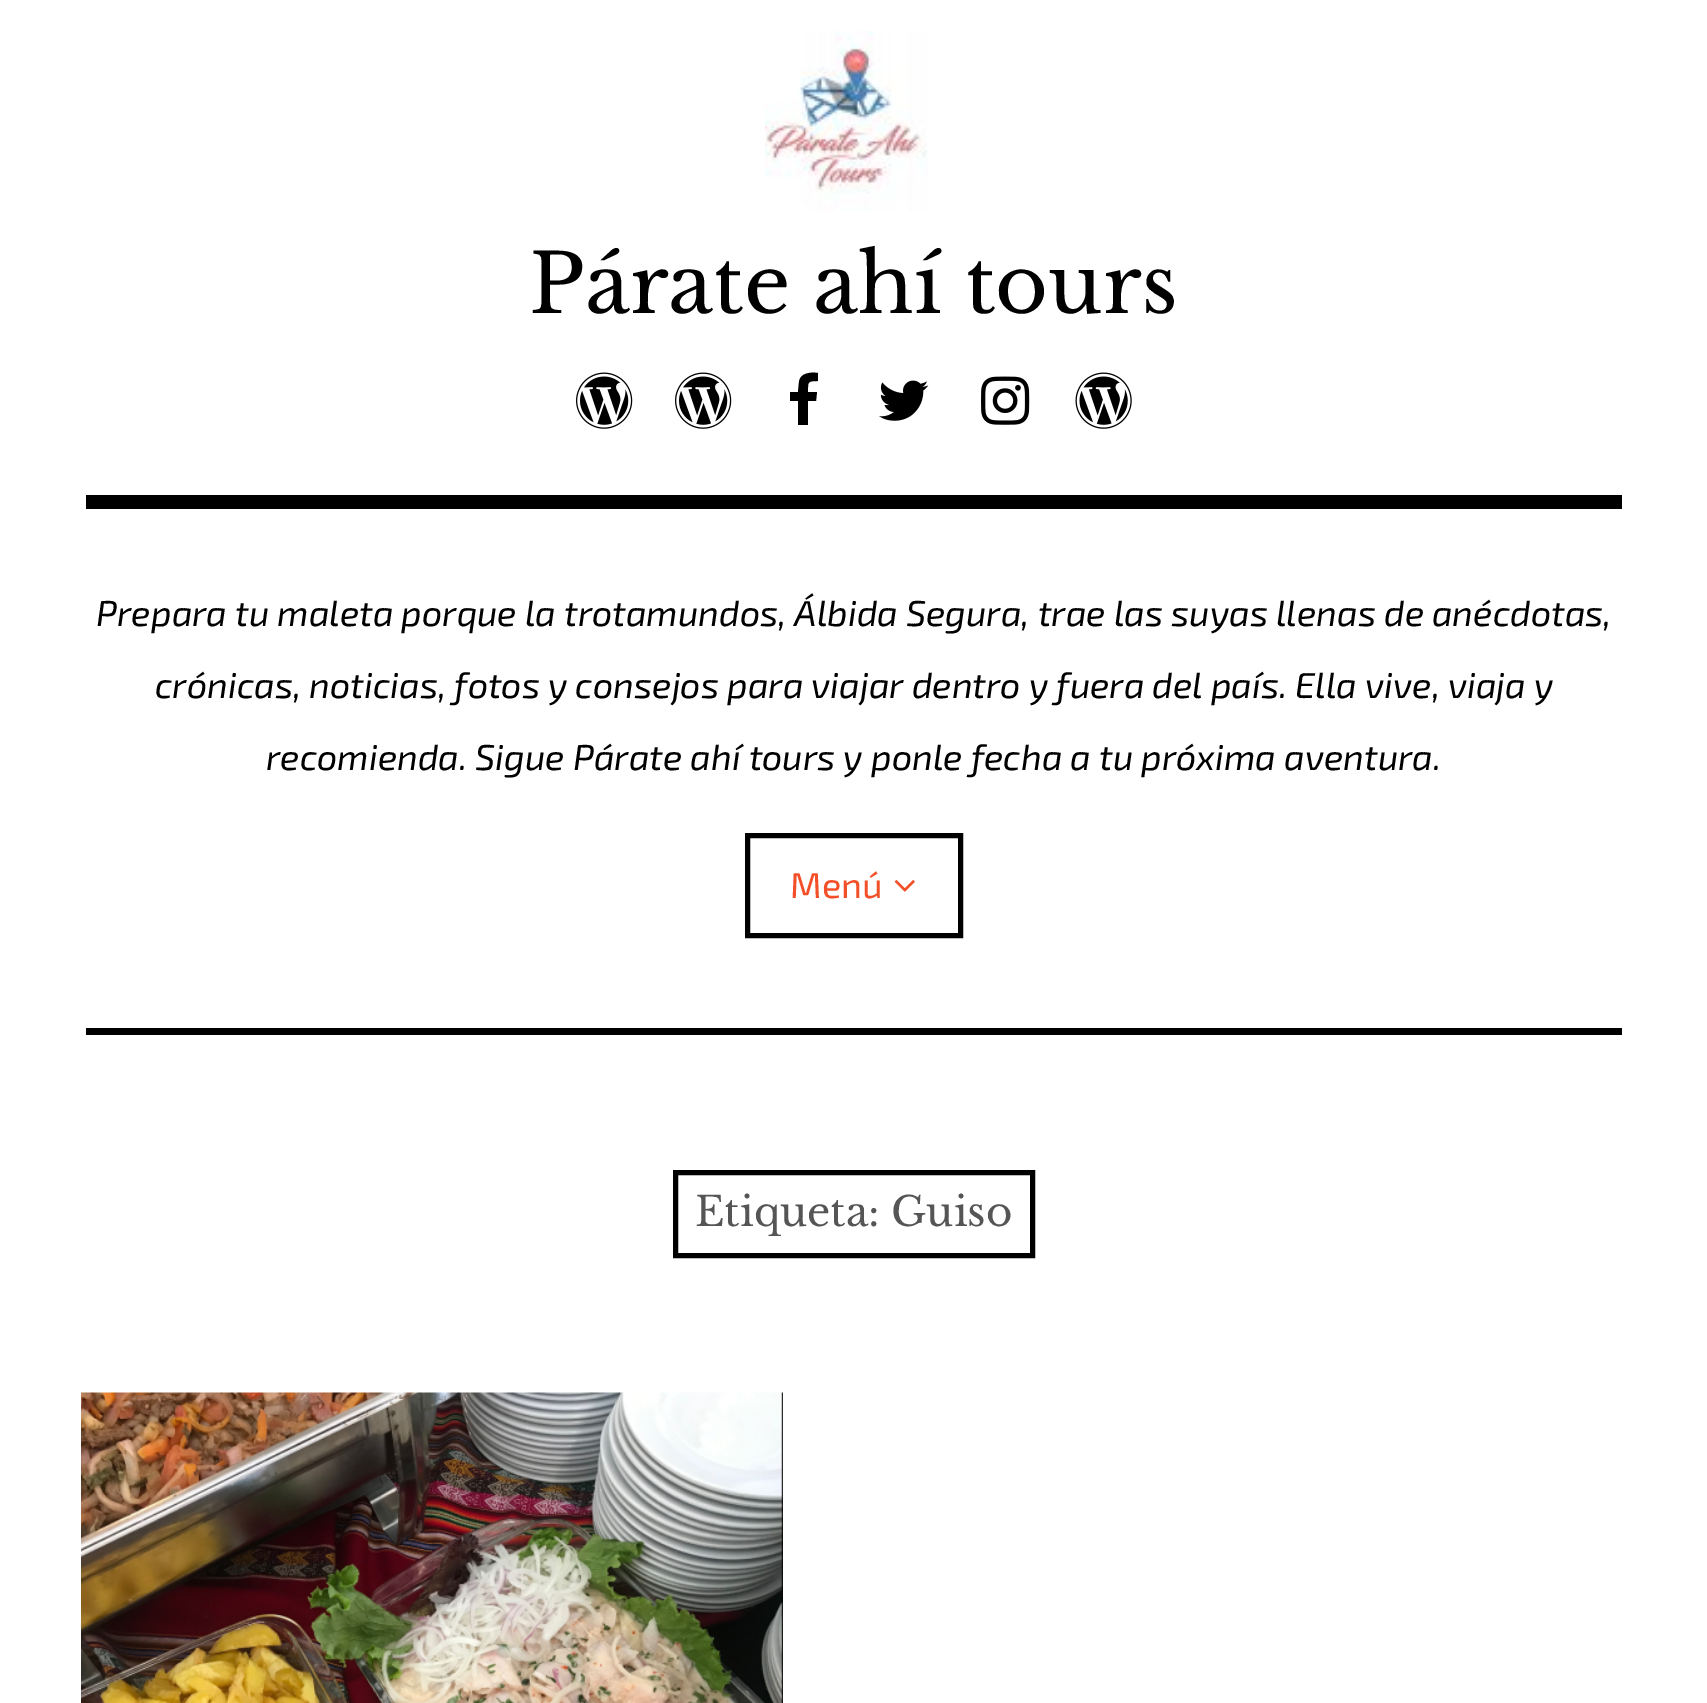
%!PS
<< /PageSize [1707 1703] >> setpagedevice
/m/moveto load def
/l/rlineto load def
/c/rcurveto load def
/z/closepath load def
/f/fill load def
/w/setlinewidth load def
/C { dup -16 bitshift 255 div exch dup -8 bitshift 255 and 255 div exch 255 and 255 div setrgbcolor } def
/F { [ exch dup neg 0 0 3 -1 roll 0 0 ] selectfont } def
/T { moveto show } def
/R { rectfill } def
/I { 5 dict begin { /h /w /y /x /name } { exch def } forall
  gsave x y translate w h scale
  w h 8 [w 0 0 h 0 0] name (r) file false 3 colorimage grestore end } def
0 1703 translate 1 -1 scale
4 setmiterlimit
16#FFFFFF C
0 0 1707 1703 R
16#000000 C
86 495 1536 14 R
(1.rgb) 765 31 163 180 I
/LibreBaskerville-Regular 81 F
(Párate ahí tours) 529 313 T
(2.rgb) 576 372 57 57 I
(2.rgb) 675 372 57 57 I
818 373 m 0 8 l -11 0 -10 1 -10 11 c 9 0 l -1 9 l -8 0 l 0 24 l -10 0 l 0 -24 l -8 0 l 0 -9 l 8 0 l 1 -10 l 1 -9 11 -10 19 -9 c z f
(3.rgb) 879 380 50 41 I
(4.rgb) 981 376 49 49 I
(5.rgb) 1075 372 57 57 I
/Exo2-Italic 36 F
(Prepara tu maleta porque la trotamundos, Álbida Segura, trae las suyas llenas de anécdotas,) 96 626 T
(crónicas, noticias, fotos y consejos para viajar dentro y fuera del país. Ella vive, viaja y) 155 698 T
(recomienda. Sigue Párate ahí tours y ponle fecha a tu próxima aventura.) 266 770 T
5 w
747.5 835.5 213 100 rectstroke
/Exo2-Regular 36 F
16#F35029 C
(Menú) 790 898 T
(6.rgb) 894 880 21 12 I
16#000000 C
86 1028 1536 7 R
675.5 1172.5 357 83 rectstroke
/LibreBaskerville-Regular 40.5 F
16#555555 C
(Etiqueta: Guiso) 695 1226 T
(7.rgb) 81 1392 702 311 I
showpage
